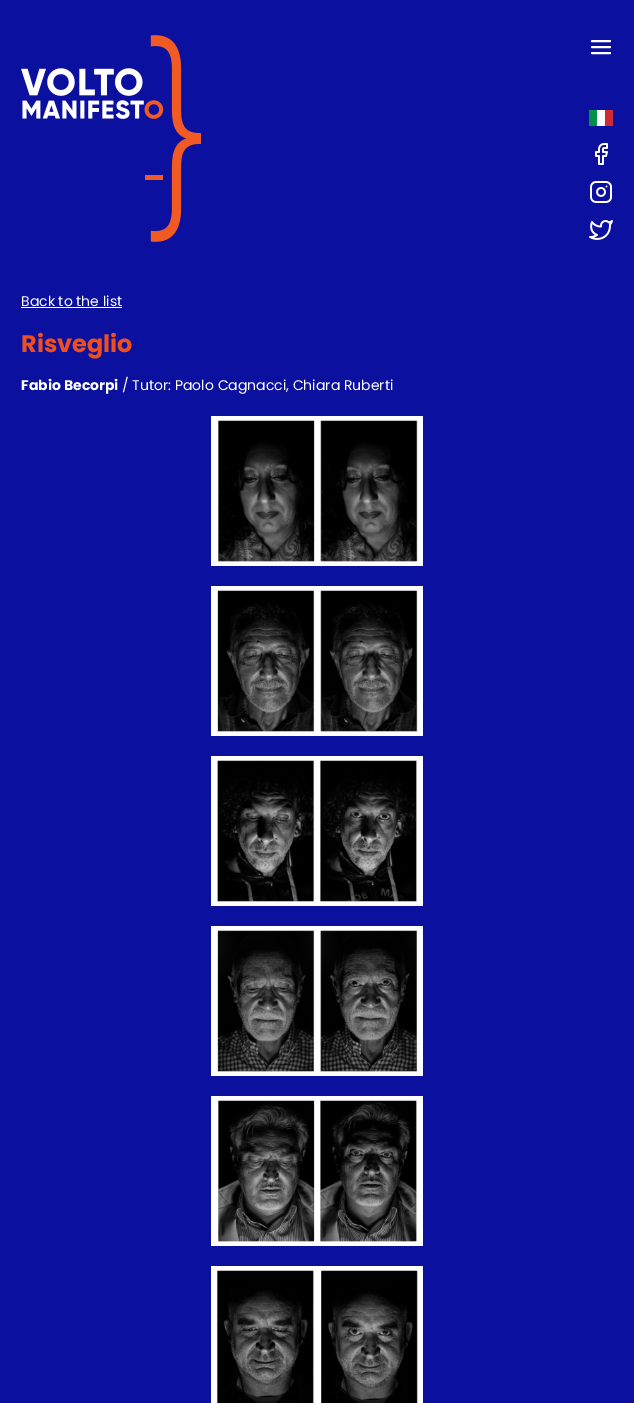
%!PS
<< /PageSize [634 1403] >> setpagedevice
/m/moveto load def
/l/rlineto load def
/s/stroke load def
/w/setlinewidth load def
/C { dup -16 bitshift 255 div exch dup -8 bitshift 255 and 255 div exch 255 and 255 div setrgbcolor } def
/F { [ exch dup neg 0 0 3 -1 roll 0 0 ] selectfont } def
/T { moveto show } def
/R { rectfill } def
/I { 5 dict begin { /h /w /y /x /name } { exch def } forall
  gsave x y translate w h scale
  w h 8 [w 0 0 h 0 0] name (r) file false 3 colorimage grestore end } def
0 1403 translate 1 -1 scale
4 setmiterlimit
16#0B109F C
0 0 634 1403 R
(1.rgb) 21 35 180 207 I
16#FFFFFF C
2 w
1 setlinecap
1 setlinejoin
592 47 m 18 0 l 592 41 m 18 0 l 592 53 m 18 0 l s
(2.rgb) 589 110 24 16 I
(3.rgb) 595 143 13 22 I
(4.rgb) 590 181 22 22 I
(5.rgb) 589 220 24 20 I
/Poppins-Regular 14 F
(Back to the list) 21 306 T
21 307 101 1 R
/Poppins-Bold 24 F
16#EF4F1F C
(Risveglio) 21 352 T
/Poppins-Bold 14 F
16#FFFFFF C
(Fabio Becorpi) 21 390 T
/Poppins-Regular 14 F
(/ Tutor: Paolo Cagnacci, Chiara Ruberti) 122 390 T
(6.rgb) 211 416 212 150 I
(7.rgb) 211 586 212 150 I
(8.rgb) 211 756 212 150 I
(9.rgb) 211 926 212 150 I
(10.rgb) 211 1096 212 150 I
(11.rgb) 211 1266 212 137 I
showpage
